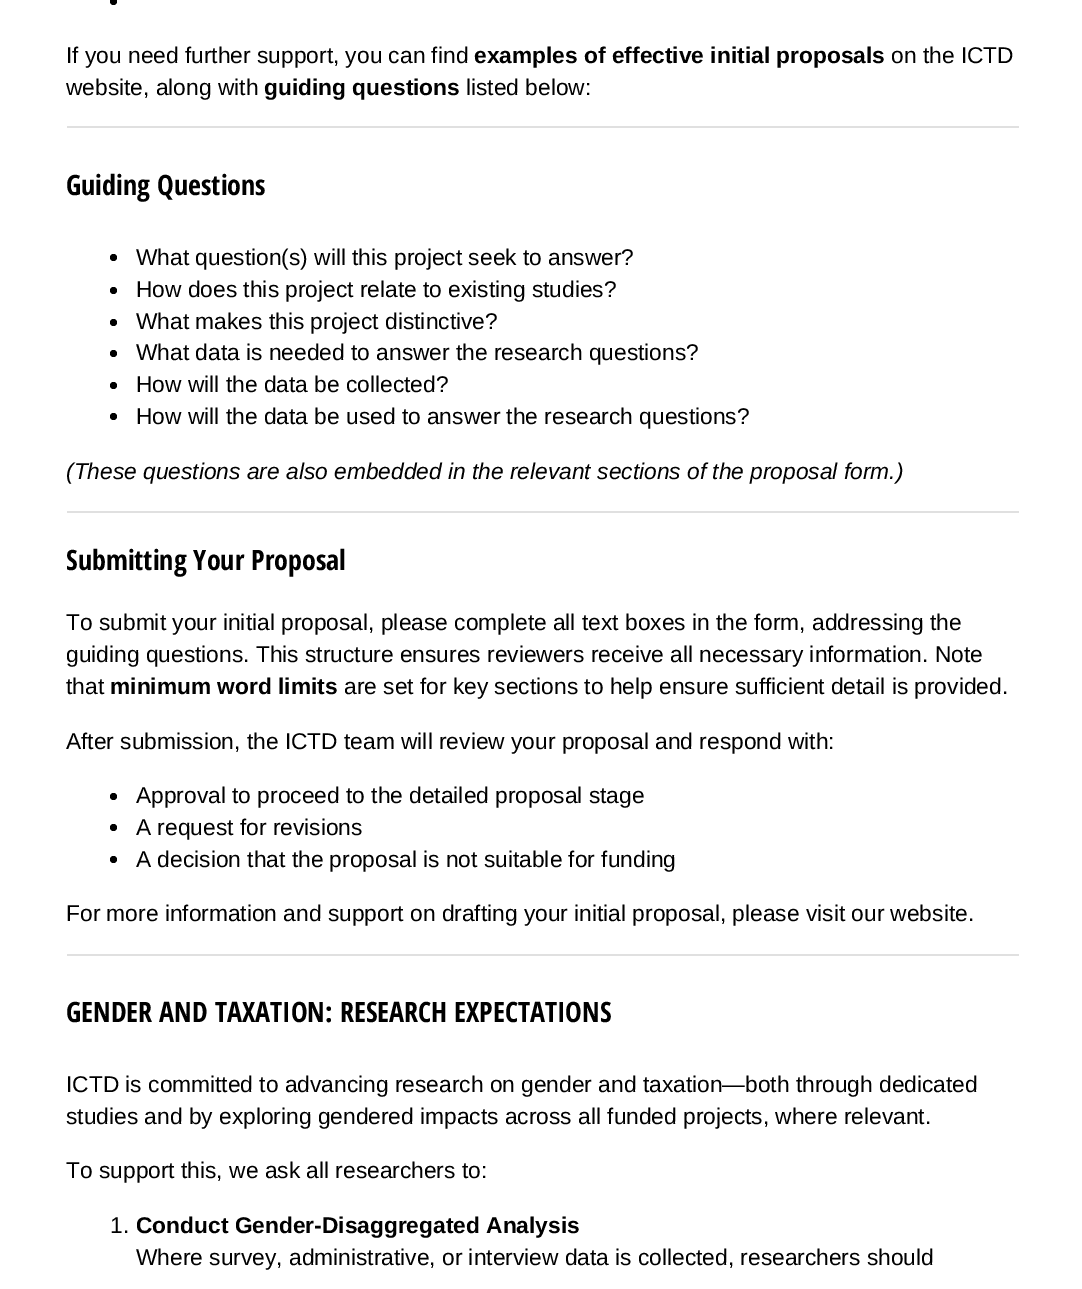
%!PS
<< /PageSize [1082 1289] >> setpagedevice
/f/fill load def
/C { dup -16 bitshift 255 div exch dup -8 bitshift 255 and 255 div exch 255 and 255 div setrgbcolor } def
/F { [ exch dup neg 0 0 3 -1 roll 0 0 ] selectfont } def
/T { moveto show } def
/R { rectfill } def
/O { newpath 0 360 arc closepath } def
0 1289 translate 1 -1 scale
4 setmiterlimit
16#FFFFFF C
0 0 1082 1289 R
16#000000 C
113.5 1.5 3.5 O f
/LiberationSans-Regular 22.75 F
(If you need further support, you can find) 66 63 T
/LiberationSans-Bold 22.75 F
(examples of effective initial proposals) 474 63 T
/LiberationSans-Regular 22.75 F
(on the ICTD) 891 63 T
(website, along with) 66 95 T
/LiberationSans-Bold 22.75 F
(guiding questions) 264 95 T
/LiberationSans-Regular 22.75 F
(listed below:) 466 95 T
16#E0E0E0 C
67 126 952 2 R
/OpenSansCondensed-Bold 28.1 F
16#000000 C
(Guiding Questions) 66 195 T
113.5 257.5 3.5 O f
/LiberationSans-Regular 22.75 F
(What question\(s\) will this project seek to answer?) 136 265 T
113.5 290.5 3.5 O f
(How does this project relate to existing studies?) 136 297 T
113.5 322.5 3.5 O f
(What makes this project distinctive?) 136 329 T
113.5 353.5 3.5 O f
(What data is needed to answer the research questions?) 136 360 T
113.5 385.5 3.5 O f
(How will the data be collected?) 136 392 T
113.5 416.5 3.5 O f
(How will the data be used to answer the research questions?) 136 424 T
/LiberationSans-Italic 22.75 F
(\(These questions are also embedded in the relevant sections of the proposal form.\)) 66 479 T
16#E0E0E0 C
67 511 952 2 R
/OpenSansCondensed-Bold 28.1 F
16#000000 C
(Submitting Your Proposal) 66 570 T
/LiberationSans-Regular 22.75 F
(To submit your initial proposal, please complete all text boxes in the form, addressing the) 66 630 T
(guiding questions. This structure ensures reviewers receive all necessary information. Note) 66 662 T
(that) 66 694 T
/LiberationSans-Bold 22.75 F
(minimum word limits) 110 694 T
/LiberationSans-Regular 22.75 F
(are set for key sections to help ensure sufficient detail is provided.) 344 694 T
(After submission, the ICTD team will review your proposal and respond with:) 66 749 T
113.5 796.5 3.5 O f
(Approval to proceed to the detailed proposal stage) 136 803 T
113.5 827.5 3.5 O f
(A request for revisions) 136 835 T
113.5 859.5 3.5 O f
(A decision that the proposal is not suitable for funding) 136 867 T
(For more information and support on drafting your initial proposal, please visit our website.) 66 921 T
16#E0E0E0 C
67 954 952 2 R
/OpenSansCondensed-Bold 28.1 F
16#000000 C
(GENDER AND TAXATION: RESEARCH EXPECTATIONS) 66 1022 T
/LiberationSans-Regular 22.75 F
(ICTD is committed to advancing research on gender and taxation—both through dedicated) 66 1092 T
(studies and by exploring gendered impacts across all funded projects, where relevant.) 66 1124 T
(To support this, we ask all researchers to:) 66 1178 T
(1.) 110 1233 T
/LiberationSans-Bold 22.75 F
(Conduct Gender-Disaggregated Analysis) 136 1233 T
/LiberationSans-Regular 22.75 F
(Where survey, administrative, or interview data is collected, researchers should) 136 1265 T
showpage
